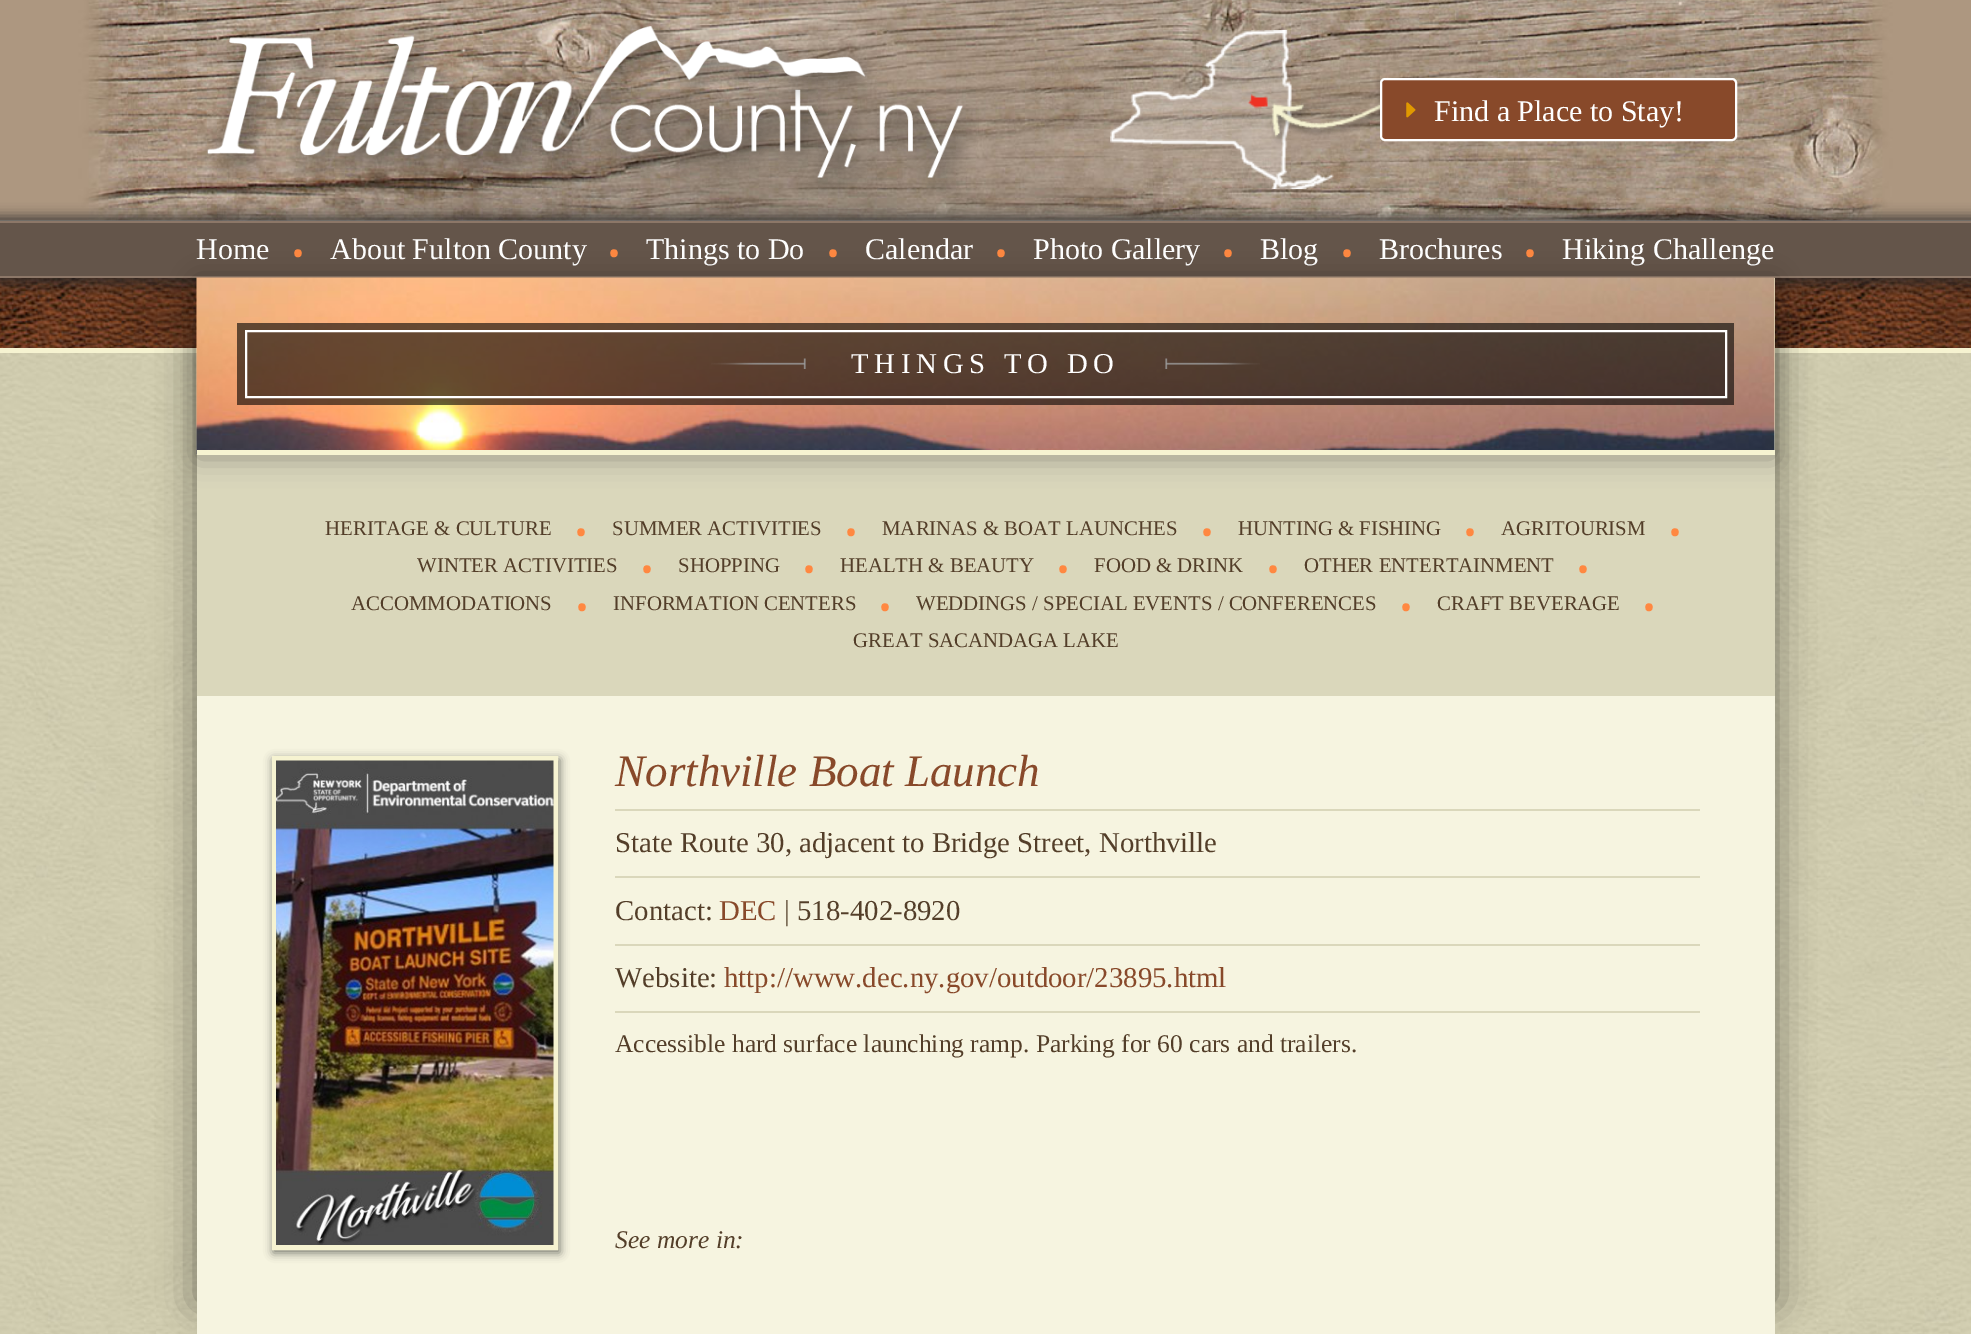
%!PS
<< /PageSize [1971 1334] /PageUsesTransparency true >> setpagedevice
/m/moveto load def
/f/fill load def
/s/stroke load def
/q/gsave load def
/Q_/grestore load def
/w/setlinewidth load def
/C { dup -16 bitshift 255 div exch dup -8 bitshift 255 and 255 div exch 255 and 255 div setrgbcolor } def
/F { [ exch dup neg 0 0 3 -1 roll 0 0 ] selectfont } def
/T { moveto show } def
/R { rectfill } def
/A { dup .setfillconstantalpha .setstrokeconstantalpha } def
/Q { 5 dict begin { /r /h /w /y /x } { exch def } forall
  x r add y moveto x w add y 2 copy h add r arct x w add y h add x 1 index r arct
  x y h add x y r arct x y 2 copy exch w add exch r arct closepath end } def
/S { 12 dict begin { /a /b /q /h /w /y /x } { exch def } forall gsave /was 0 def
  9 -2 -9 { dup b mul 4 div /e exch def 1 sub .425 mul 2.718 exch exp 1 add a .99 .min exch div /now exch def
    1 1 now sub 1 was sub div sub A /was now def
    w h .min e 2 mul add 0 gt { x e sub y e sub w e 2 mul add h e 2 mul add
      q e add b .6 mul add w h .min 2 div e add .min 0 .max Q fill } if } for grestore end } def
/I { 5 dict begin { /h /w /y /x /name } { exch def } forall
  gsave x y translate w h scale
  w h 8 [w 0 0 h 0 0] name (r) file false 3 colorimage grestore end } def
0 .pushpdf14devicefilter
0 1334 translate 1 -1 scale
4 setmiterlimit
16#FFFFFF C
0 0 1971 1334 R
(1.rgb) 0 0 1971 221 I
(2.rgb) 205 22 774 174 I
(3.rgb) 1110 30 270 159 I
16#88492A C
1381 79 355 61 4 Q q f Q_
16#FFFFFF C
2 w
s
(4.rgb) 1406 102 10 16 I
/LiberationSerif-Regular 30 F
(Find a Place to Stay!) 1434 121 T
(6.rgb) 0 278 1971 70 I
16#282828 C
-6 216 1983 69 0 6 .75 S
(5.rgb) 0 353 1971 981 I
16#F6F3D1 C
0 348 1971 5 R
16#000000 C
197 315 1503 987 0 19 .45 S
272 315 1503 987 0 19 .45 S
16#64554A C
0 223 1971 53 R
16#8C7768 C
0 221 1971 2 R
0 276 1971 2 R
16#FFFFFF C
(Home) 196 259 T
/NotoSans-Regular 60 F
16#FF8841 C
(‧) 290 268 T
/LiberationSerif-Regular 30 F
16#FFFFFF C
(About Fulton County) 330 259 T
/NotoSans-Regular 60 F
16#FF8841 C
(‧) 606 268 T
/LiberationSerif-Regular 30 F
16#FFFFFF C
(Things to Do) 646 259 T
/NotoSans-Regular 60 F
16#FF8841 C
(‧) 825 268 T
/LiberationSerif-Regular 30 F
16#FFFFFF C
(Calendar) 865 259 T
/NotoSans-Regular 60 F
16#FF8841 C
(‧) 993 268 T
/LiberationSerif-Regular 30 F
16#FFFFFF C
(Photo Gallery) 1033 259 T
/NotoSans-Regular 60 F
16#FF8841 C
(‧) 1220 268 T
/LiberationSerif-Regular 30 F
16#FFFFFF C
(Blog) 1260 259 T
/NotoSans-Regular 60 F
16#FF8841 C
(‧) 1339 268 T
/LiberationSerif-Regular 30 F
16#FFFFFF C
(Brochures) 1379 259 T
/NotoSans-Regular 60 F
16#FF8841 C
(‧) 1522 268 T
/LiberationSerif-Regular 30 F
16#FFFFFF C
(Hiking Challenge) 1562 259 T
16#DAD7BB C
197 455 1578 241 R
16#000000 C
197 281 1578 177 0 13.5 .3 S
16#F6F3D1 C
1774 278 1 172 R
(7.rgb) 196 277 1579 178 I
197 450 1578 5 R
0.6 A
16#000000 C
237 323 1497 82 R
1 A
16#FFFFFF C
246 331 1480 66 rectstroke
(8.rgb) 711 358 95 11 I
/LiberationSerif-Regular 28.8 F
851 373 m 5.75 0 (THINGS TO DO) ashow
(9.rgb) 1165 358 95 11 I
/LiberationSerif-Regular 20.8 F
16#533E29 C
(HERITAGE & CULTURE) 325 535 T
/NotoSans-Regular 60 F
16#FF8841 C
(‧) 573 547 T
/LiberationSerif-Regular 20.8 F
16#533E29 C
(SUMMER ACTIVITIES) 612 535 T
/NotoSans-Regular 60 F
16#FF8841 C
(‧) 843 547 T
/LiberationSerif-Regular 20.8 F
16#533E29 C
(MARINAS & BOAT LAUNCHES) 882 535 T
/NotoSans-Regular 60 F
16#FF8841 C
(‧) 1199 547 T
/LiberationSerif-Regular 20.8 F
16#533E29 C
(HUNTING & FISHING) 1238 535 T
/NotoSans-Regular 60 F
16#FF8841 C
(‧) 1462 547 T
/LiberationSerif-Regular 20.8 F
16#533E29 C
(AGRITOURISM) 1501 535 T
/NotoSans-Regular 60 F
16#FF8841 C
(‧) 1667 547 T
/LiberationSerif-Regular 20.8 F
16#533E29 C
(WINTER ACTIVITIES) 417 572 T
/NotoSans-Regular 60 F
16#FF8841 C
(‧) 639 584 T
/LiberationSerif-Regular 20.8 F
16#533E29 C
(SHOPPING) 678 572 T
/NotoSans-Regular 60 F
16#FF8841 C
(‧) 801 584 T
/LiberationSerif-Regular 20.8 F
16#533E29 C
(HEALTH & BEAUTY) 840 572 T
/NotoSans-Regular 60 F
16#FF8841 C
(‧) 1055 584 T
/LiberationSerif-Regular 20.8 F
16#533E29 C
(FOOD & DRINK) 1094 572 T
/NotoSans-Regular 60 F
16#FF8841 C
(‧) 1265 584 T
/LiberationSerif-Regular 20.8 F
16#533E29 C
(OTHER ENTERTAINMENT) 1304 572 T
/NotoSans-Regular 60 F
16#FF8841 C
(‧) 1575 584 T
/LiberationSerif-Regular 20.8 F
16#533E29 C
(ACCOMMODATIONS) 351 610 T
/NotoSans-Regular 60 F
16#FF8841 C
(‧) 574 622 T
/LiberationSerif-Regular 20.8 F
16#533E29 C
(INFORMATION CENTERS) 613 610 T
/NotoSans-Regular 60 F
16#FF8841 C
(‧) 877 622 T
/LiberationSerif-Regular 20.8 F
16#533E29 C
(WEDDINGS / SPECIAL EVENTS / CONFERENCES) 916 610 T
/NotoSans-Regular 60 F
16#FF8841 C
(‧) 1398 622 T
/LiberationSerif-Regular 20.8 F
16#533E29 C
(CRAFT BEVERAGE) 1437 610 T
/NotoSans-Regular 60 F
16#FF8841 C
(‧) 1641 622 T
/LiberationSerif-Regular 20.8 F
16#533E29 C
(GREAT SACANDAGA LAKE) 853 647 T
16#F6F4E0 C
197 696 1578 638 R
16#282826 C
273 759 287 494 0 4.5 .6 S
16#F6F3D1 C
5 w
274.5 758.5 281 489 rectstroke
(10.rgb) 276 760 278 485 I
16#DAD7BB C
615 809 1085 2 R
/LiberationSerif-Italic 45 F
16#88492A C
(Northville Boat Launch) 615 786 T
16#DAD7BB C
615 876 1085 2 R
/LiberationSerif-Regular 28.8 F
16#533E29 C
(State Route 30, adjacent to Bridge Street, Northville) 615 852 T
16#DAD7BB C
615 944 1085 2 R
16#533E29 C
(Contact:) 615 920 T
16#88492A C
(DEC) 719 920 T
16#533E29 C
(| 518-402-8920) 784 920 T
16#DAD7BB C
615 1011 1085 2 R
16#533E29 C
(Website:) 615 987 T
16#88492A C
(http://www.dec.ny.gov/outdoor/23895.html) 724 987 T
/LiberationSerif-Regular 25.5 F
16#533E29 C
(Accessible hard surface launching ramp. Parking for 60 cars and trailers.) 615 1052 T
/LiberationSerif-Italic 25.5 F
(See more in:) 615 1248 T
.poppdf14devicefilter showpage
